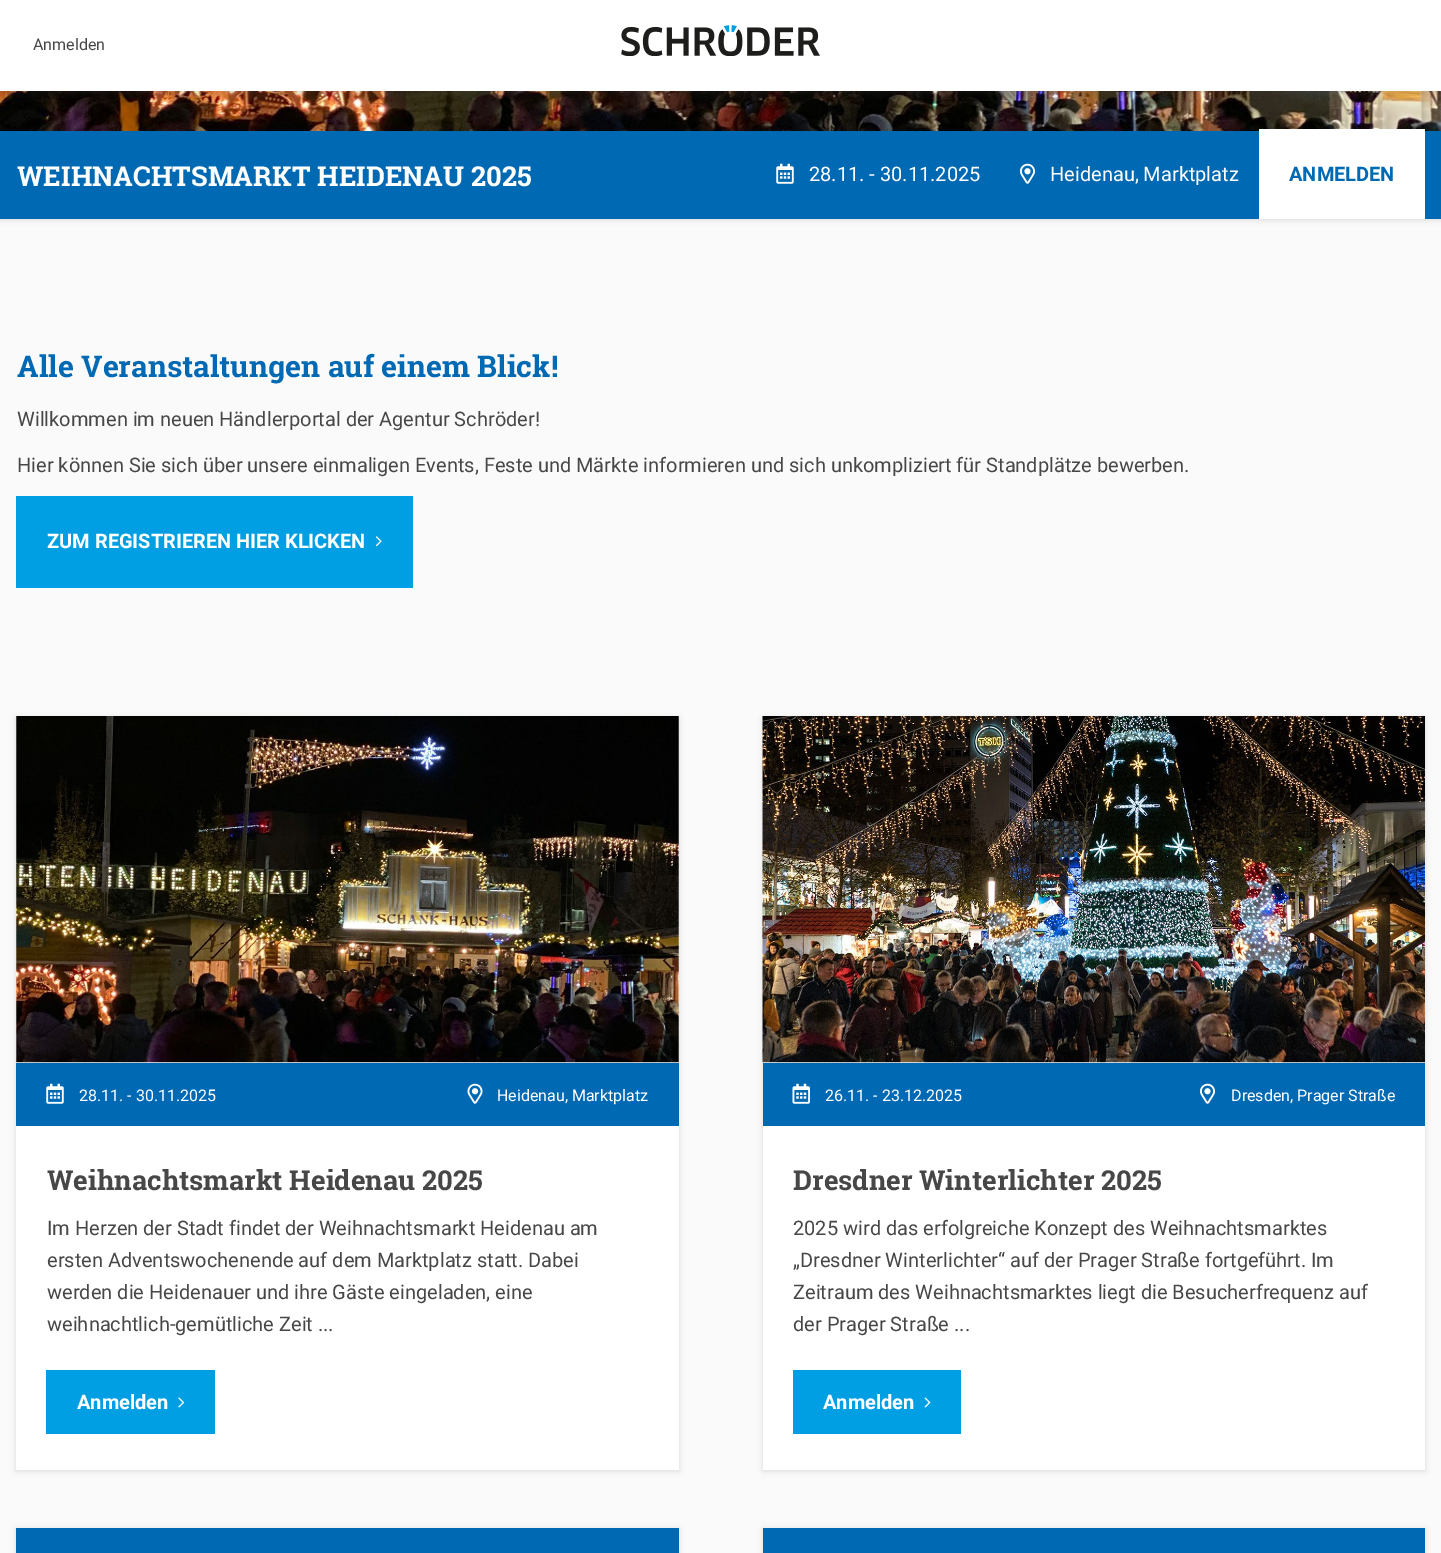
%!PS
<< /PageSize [1441 1553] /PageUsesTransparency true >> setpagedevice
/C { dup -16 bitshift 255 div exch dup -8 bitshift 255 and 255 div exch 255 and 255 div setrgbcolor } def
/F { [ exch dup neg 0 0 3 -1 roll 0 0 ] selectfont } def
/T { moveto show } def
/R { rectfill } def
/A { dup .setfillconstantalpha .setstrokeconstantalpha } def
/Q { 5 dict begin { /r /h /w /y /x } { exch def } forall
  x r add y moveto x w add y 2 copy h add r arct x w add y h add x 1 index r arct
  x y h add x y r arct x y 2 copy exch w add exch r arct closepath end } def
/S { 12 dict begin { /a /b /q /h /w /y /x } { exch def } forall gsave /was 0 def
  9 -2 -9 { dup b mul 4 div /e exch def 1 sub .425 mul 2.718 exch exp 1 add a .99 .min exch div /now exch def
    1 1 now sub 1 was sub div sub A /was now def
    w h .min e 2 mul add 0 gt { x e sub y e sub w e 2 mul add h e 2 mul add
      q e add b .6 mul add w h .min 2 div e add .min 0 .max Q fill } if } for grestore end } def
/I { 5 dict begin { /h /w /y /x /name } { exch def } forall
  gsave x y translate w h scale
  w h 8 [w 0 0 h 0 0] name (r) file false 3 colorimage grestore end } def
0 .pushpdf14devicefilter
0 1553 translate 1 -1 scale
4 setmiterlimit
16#FAFAFA C
0 0 1441 1553 R
16#474747 C
0 -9 1441 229 0 3 .2 S
(2.rgb) 0 91 1441 40 I
0 1 1441 92 0 3 .2 S
16#FFFFFF C
0 0 1441 91 R
/Roboto-Regular 16 F
16#474747 C
(Anmelden) 33 50 T
(1.rgb) 621 25 199 31 I
16#0069B4 C
0 131 1441 88 R
/RobotoSlab-Bold 27.5 F
16#FFFFFF C
(WEIHNACHTSMARKT HEIDENAU 2025) 17 186 T
(3.rgb) 776 163 18 21 I
/Roboto-Regular 20 F
(28.11. - 30.11.2025) 809 181 T
(4.rgb) 1020 163 15 21 I
(Heidenau, Marktplatz) 1050 181 T
1259 129 166 90 R
/Roboto-Bold 20 F
16#0069B4 C
(ANMELDEN) 1289 181 T
/RobotoSlab-Bold 30 F
(Alle Veranstaltungen auf einem Blick!) 17 377 T
/Roboto-Regular 20 F
16#474747 C
(Willkommen im neuen Händlerportal der Agentur Schröder!) 17 426 T
(Hier können Sie sich über unsere einmaligen Events, Feste und Märkte informieren und sich unkompliziert für Standplätze bewerben.) 17 472 T
16#009FE3 C
16 496 397 92 R
/Roboto-Bold 20 F
16#FFFFFF C
(ZUM REGISTRIEREN HIER KLICKEN) 47 548 T
(5.rgb) 375 536 7 11 I
16#474747 C
16 718 663 753 0 3 .2 S
16#FFFFFF C
16 716 663 754 R
(6.rgb) 16 716 663 347 I
16#0069B4 C
16 1063 663 63 R
(3.rgb) 46 1083 18 21 I
/Roboto-Regular 16 F
16#FFFFFF C
(28.11. - 30.11.2025) 79 1101 T
(7.rgb) 467 1083 16 21 I
(Heidenau, Marktplatz) 497 1101 T
/RobotoSlab-Bold 27.5 F
16#474747 C
(Weihnachtsmarkt Heidenau 2025) 47 1190 T
/Roboto-Regular 20 F
(Im Herzen der Stadt findet der Weihnachtsmarkt Heidenau am) 47 1235 T
(ersten Adventswochenende auf dem Marktplatz statt. Dabei) 47 1267 T
(werden die Heidenauer und ihre Gäste eingeladen, eine) 47 1299 T
(weihnachtlich-gemütliche Zeit ...) 47 1331 T
16#009FE3 C
46 1370 169 64 R
/Roboto-Bold 20 F
16#FFFFFF C
(Anmelden) 77 1409 T
(8.rgb) 178 1397 7 11 I
16#474747 C
763 718 662 753 0 3 .2 S
16#FFFFFF C
763 1062 662 408 R
(9.rgb) 762 716 663 347 I
16#0069B4 C
763 1063 662 63 R
(10.rgb) 792 1083 18 21 I
/Roboto-Regular 16 F
16#FFFFFF C
(26.11. - 23.12.2025) 825 1101 T
(4.rgb) 1200 1083 15 21 I
(Dresden, Prager Straße) 1231 1101 T
/RobotoSlab-Bold 27.5 F
16#474747 C
(Dresdner Winterlichter 2025) 793 1190 T
/Roboto-Regular 20 F
(2025 wird das erfolgreiche Konzept des Weihnachtsmarktes) 793 1235 T
(„Dresdner Winterlichter“ auf der Prager Straße fortgeführt. Im) 793 1267 T
(Zeitraum des Weihnachtsmarktes liegt die Besucherfrequenz auf) 793 1299 T
(der Prager Straße ...) 793 1331 T
16#009FE3 C
793 1370 168 64 R
/Roboto-Bold 20 F
16#FFFFFF C
(Anmelden) 823 1409 T
(11.rgb) 924 1397 7 11 I
16#474747 C
16 1529 663 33 0 3 .2 S
16#0069B4 C
16 1528 663 25 R
16#474747 C
763 1529 662 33 0 3 .2 S
16#0069B4 C
763 1528 662 25 R
.poppdf14devicefilter showpage
